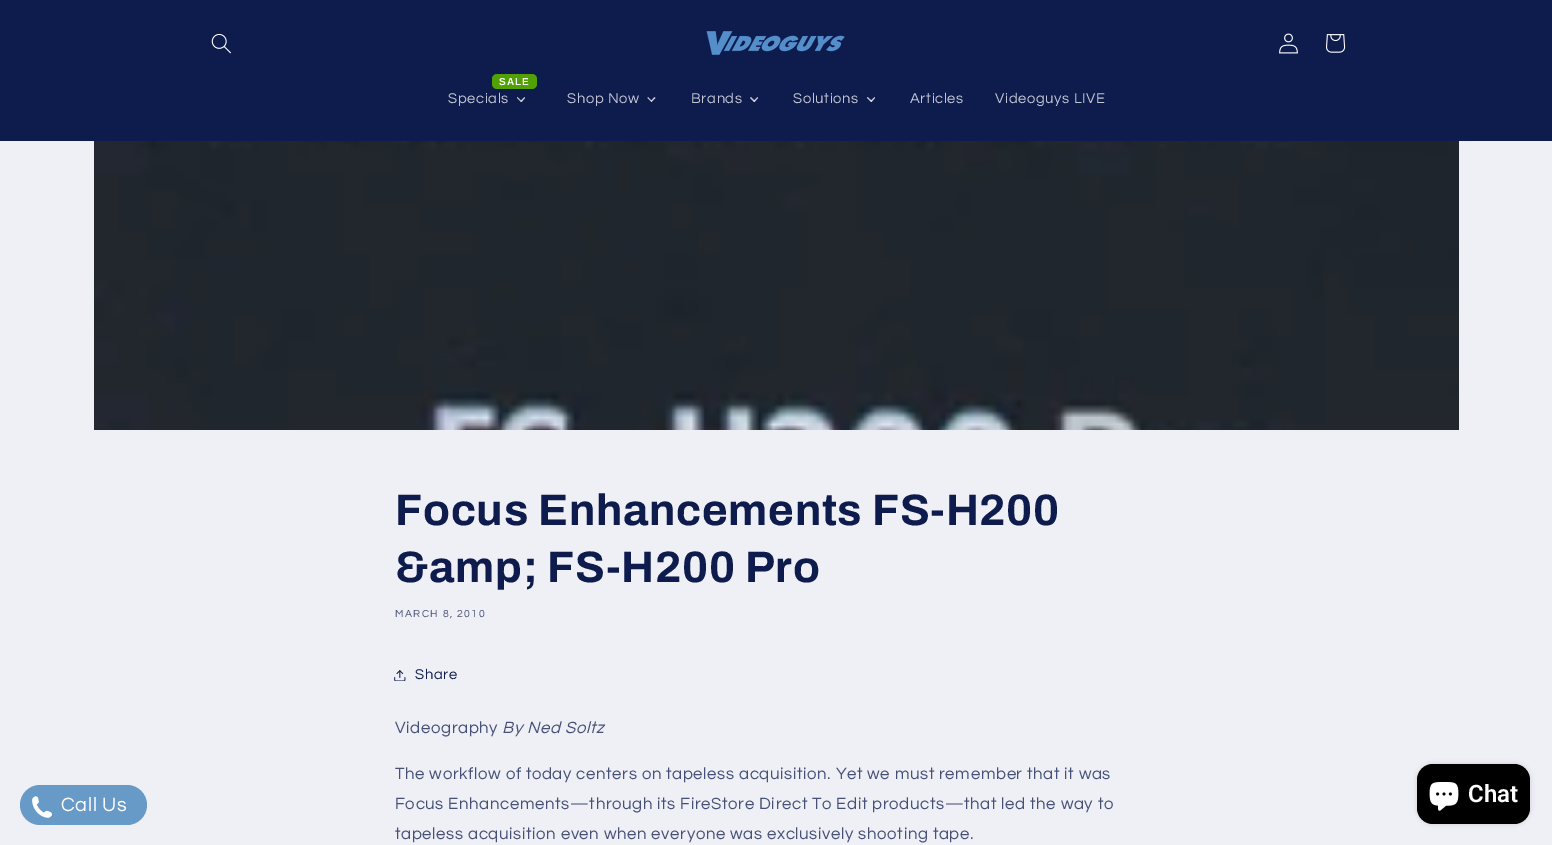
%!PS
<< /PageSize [1552 845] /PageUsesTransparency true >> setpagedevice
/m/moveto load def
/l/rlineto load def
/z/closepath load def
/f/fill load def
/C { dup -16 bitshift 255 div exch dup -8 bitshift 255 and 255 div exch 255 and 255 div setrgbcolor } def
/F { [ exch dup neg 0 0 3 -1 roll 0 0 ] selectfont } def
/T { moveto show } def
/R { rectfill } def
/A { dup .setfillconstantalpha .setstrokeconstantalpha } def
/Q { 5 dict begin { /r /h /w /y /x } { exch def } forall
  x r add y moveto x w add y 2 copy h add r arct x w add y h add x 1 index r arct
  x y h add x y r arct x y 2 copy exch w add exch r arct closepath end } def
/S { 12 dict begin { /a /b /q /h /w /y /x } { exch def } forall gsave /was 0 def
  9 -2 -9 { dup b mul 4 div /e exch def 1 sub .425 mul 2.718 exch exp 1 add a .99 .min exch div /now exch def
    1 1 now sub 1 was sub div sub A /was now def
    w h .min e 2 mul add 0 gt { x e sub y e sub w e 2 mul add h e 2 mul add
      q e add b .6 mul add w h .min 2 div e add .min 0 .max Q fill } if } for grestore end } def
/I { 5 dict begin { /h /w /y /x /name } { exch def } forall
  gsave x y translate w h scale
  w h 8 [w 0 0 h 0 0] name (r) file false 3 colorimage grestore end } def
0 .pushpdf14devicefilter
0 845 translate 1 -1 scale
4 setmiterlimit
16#EFF0F5 C
0 0 1552 845 R
16#0E1B4D C
0 0 1552 141 R
(1.rgb) 211 33 20 21 I
(2.rgb) 706 31 139 24 I
(3.rgb) 1279 33 19 21 I
(4.rgb) 1326 34 20 19 I
16#52A104 C
492 74 45 15 5 Q f
/LiberationSans-Bold 10 F
16#FFFFFF C
499 85 m 1 0 (SALE) ashow
/Questrial-Regular 14.75 F
16#C3C6D3 C
448 103 m .63 0 (Specials) ashow
524.5 97 m .5 1 l -3.5 4 l -1 -1 l z f
0.75 A
16#FFFFFF C
517.5 97 m 4 4 l -.5 1 l -4 -4 l z f
1 A
16#C3C6D3 C
567 103 m .63 0 (Shop Now) ashow
654.5 97 m 1 1 l -4 4 l -.5 -1 l z f
0.75 A
16#FFFFFF C
648 97 m 4 4 l -.5 1 l -4 -4 l z f
1 A
16#C3C6D3 C
691 103 m .63 0 (Brands) ashow
757.5 97 m .5 1 l -3.5 4 l -1 -1 l z f
0.75 A
16#FFFFFF C
751 97 m 4 4 l -1 1 l -4 -4 l z f
1 A
16#C3C6D3 C
793 103 m .63 0 (Solutions) ashow
874.5 97 m .5 1 l -3.5 4 l -1 -1 l z f
0.75 A
16#FFFFFF C
867.5 97 m 4.5 4 l -1 1 l -4 -4 l z f
1 A
16#C3C6D3 C
910 103 m .63 0 (Articles) ashow
995 103 m .63 0 (Videoguys LIVE) ashow
(5.rgb) 94 141 1365 289 I
/Archivo-Bold 44 F
16#0E1B4D C
395 525 m .65 0 (Focus Enhancements FS-H200) ashow
395 582 m .65 0 (&amp; FS-H200 Pro) ashow
/Questrial-Regular 10.5 F
16#465077 C
395 617 m 1.4 0 (MARCH 8, 2010) ashow
(6.rgb) 394 670 12 11 I
/Questrial-Regular 14.75 F
16#0E1B4D C
415 679 m .63 0 (Share) ashow
/Questrial-Regular 16.8 F
16#465077 C
395 733 m .63 0 (Videography) ashow
/Questrial-Italic 16.8 F
502 733 m .63 0 (By Ned Soltz) ashow
/Questrial-Regular 16.8 F
395 779 m .63 0 (The workflow of today centers on tapeless acquisition. Yet we must remember that it was) ashow
395 809 m .63 0 (Focus Enhancements—through its FireStore Direct To Edit products—that led the way to) ashow
395 839 m .63 0 (tapeless acquisition even when everyone was exclusively shooting tape.) ashow
16#000000 C
1417 764 113 60 16 2.5 .15 S
1417 764 113 60 16 Q f
(7.rgb) 1429 782 30 29 I
/Roboto-SemiBold 24 F
16#FFFFFF C
(Chat) 1468 802 T
16#689AC8 C
20 785 127 40 20 Q f
(8.rgb) 32 796 20 22 I
/Questrial-Regular 20 F
16#FFFFFF C
61 811 m .63 0 (Call Us) ashow
.poppdf14devicefilter showpage
